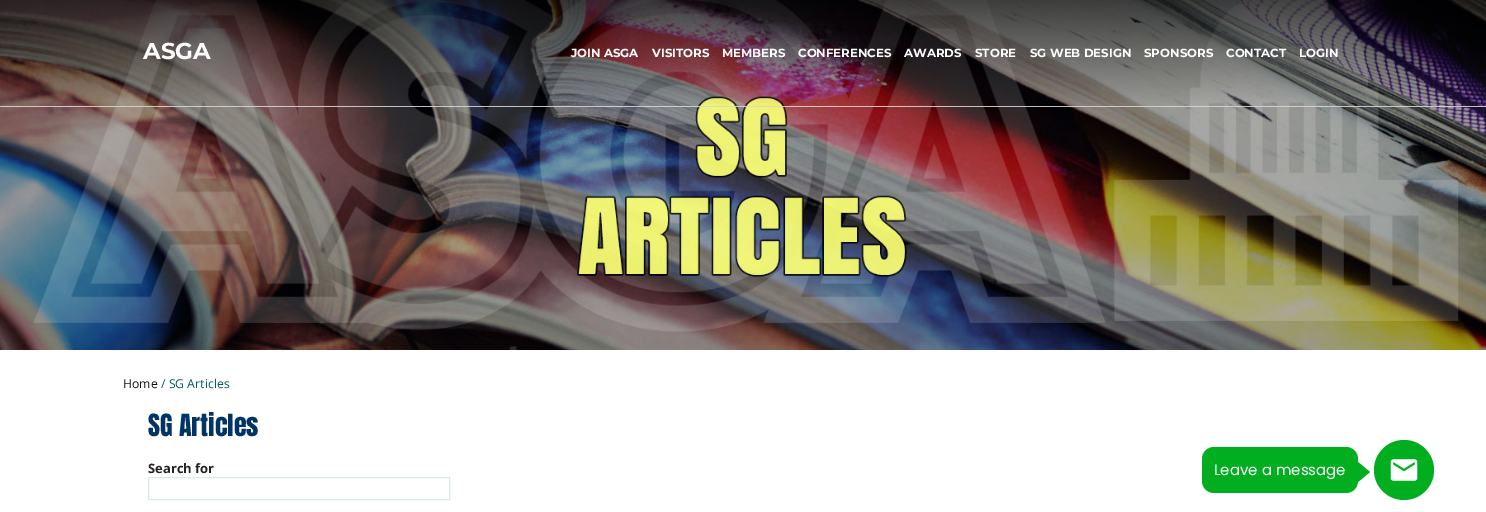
%!PS
<< /PageSize [1486 512] /PageUsesTransparency true >> setpagedevice
/m/moveto load def
/l/rlineto load def
/z/closepath load def
/f/fill load def
/C { dup -16 bitshift 255 div exch dup -8 bitshift 255 and 255 div exch 255 and 255 div setrgbcolor } def
/F { [ exch dup neg 0 0 3 -1 roll 0 0 ] selectfont } def
/T { moveto show } def
/R { rectfill } def
/A { dup .setfillconstantalpha .setstrokeconstantalpha } def
/O { newpath 0 360 arc closepath } def
/Q { 5 dict begin { /r /h /w /y /x } { exch def } forall
  x r add y moveto x w add y 2 copy h add r arct x w add y h add x 1 index r arct
  x y h add x y r arct x y 2 copy exch w add exch r arct closepath end } def
/I { 5 dict begin { /h /w /y /x /name } { exch def } forall
  gsave x y translate w h scale
  w h 8 [w 0 0 h 0 0] name (r) file false 3 colorimage grestore end } def
0 .pushpdf14devicefilter
0 512 translate 1 -1 scale
4 setmiterlimit
16#FFFFFF C
0 0 1486 512 R
(1.rgb) 0 0 1486 350 I
0.75 A
0 106 1486 1 R
/Montserrat-Bold 23 F
1 A
(ASGA) 143 59 T
/Montserrat-Bold 11.75 F
(JOIN ASGA) 571 57 T
(VISITORS) 652 57 T
(MEMBERS) 722 57 T
(CONFERENCES) 798 57 T
(AWARDS) 904 57 T
(STORE) 975 57 T
(SG WEB DESIGN) 1030 57 T
(SPONSORS) 1144 57 T
(CONTACT) 1226 57 T
(LOGIN) 1299 57 T
/OpenSans-Regular 12.25 F
16#111111 C
(Home) 123 388 T
16#005B5B C
(/ SG Articles) 161 388 T
/Anton-Regular 26 F
16#003366 C
(SG Articles) 148 436 T
/OpenSans-Bold 13 F
16#222222 C
(Search for) 148 473 T
16#DBEAE9 C
148.5 477.5 301 22 rectstroke
16#00AE20 C
1404 470 30 O f
1202 447 156 46 12 Q f
/Poppins-Regular 15 F
16#FFFFFF C
(Leave a message) 1214 475 T
16#00AE20 C
1358 482 m 0 -20 l 12 10 l z f
(2.rgb) 1390 459 28 22 I
.poppdf14devicefilter showpage
